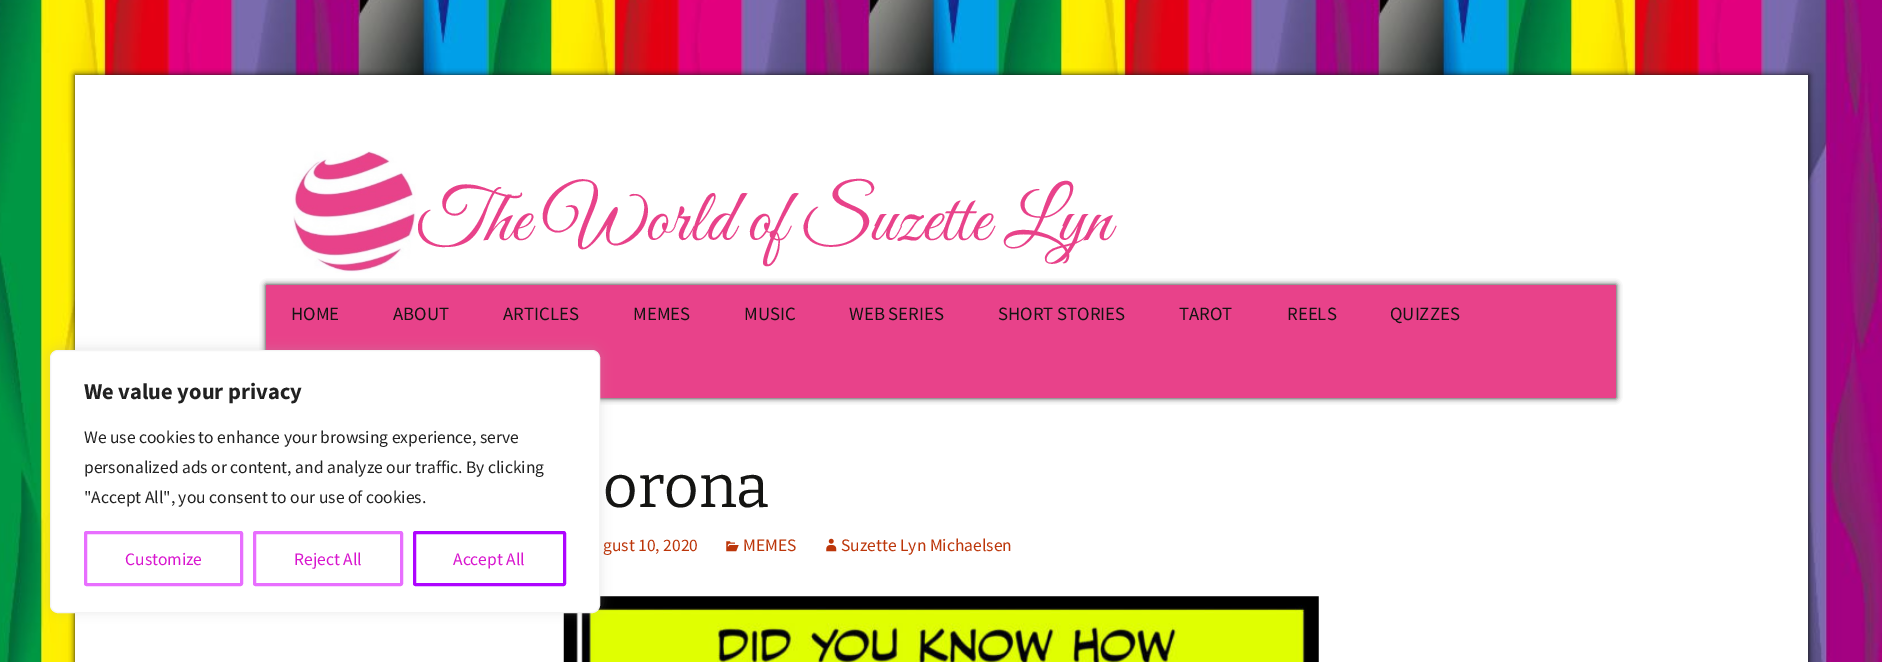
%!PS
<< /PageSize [1882 662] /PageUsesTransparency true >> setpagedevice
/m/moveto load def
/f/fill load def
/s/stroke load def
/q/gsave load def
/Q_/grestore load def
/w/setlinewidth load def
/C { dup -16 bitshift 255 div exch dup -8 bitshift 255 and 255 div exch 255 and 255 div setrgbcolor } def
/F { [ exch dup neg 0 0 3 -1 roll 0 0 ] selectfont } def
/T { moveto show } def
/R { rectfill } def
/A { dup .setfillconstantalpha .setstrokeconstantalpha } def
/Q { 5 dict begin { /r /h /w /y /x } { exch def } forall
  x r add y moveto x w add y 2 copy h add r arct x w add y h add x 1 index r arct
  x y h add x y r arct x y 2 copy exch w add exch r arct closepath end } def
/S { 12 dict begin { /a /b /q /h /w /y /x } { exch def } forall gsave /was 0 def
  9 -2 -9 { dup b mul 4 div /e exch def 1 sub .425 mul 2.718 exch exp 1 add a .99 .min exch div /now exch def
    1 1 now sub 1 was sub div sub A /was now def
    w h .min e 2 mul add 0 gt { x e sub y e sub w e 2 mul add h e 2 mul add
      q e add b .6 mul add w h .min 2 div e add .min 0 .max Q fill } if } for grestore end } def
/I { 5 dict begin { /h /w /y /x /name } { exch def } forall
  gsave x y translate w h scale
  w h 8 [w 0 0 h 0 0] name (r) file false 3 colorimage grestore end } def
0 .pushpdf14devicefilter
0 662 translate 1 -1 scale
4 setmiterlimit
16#FFFFFF C
0 0 1882 662 R
(1.rgb) 0 0 1882 662 I
16#141412 C
75 75 1734 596 0 3 1 S
16#FFFFFF C
75 75 1733 587 R
(2.rgb) 293 151 123 122 I
/GreatVibes-Regular 75 F
16#E8428A C
416 240 m .5 0 32 (The World of Suzette Lyn) widthshow
16#141412 C
266 285 1350 113 0 3 1 S
16#E8428A C
266 285 1350 113 R
/SourceSansPro-Regular 18.75 F
16#141412 C
(HOME) 291 320 T
(ABOUT) 393 320 T
(ARTICLES) 503 320 T
(MEMES) 633 320 T
(MUSIC) 744 320 T
(WEB SERIES) 849 320 T
(SHORT STORIES) 998 320 T
(TAROT) 1179 320 T
(REELS) 1287 320 T
(QUIZZES) 1390 320 T
/Bitter-Regular 60 F
(orona) 603 507 T
/SourceSansPro-Regular 17.5 F
16#BC360A C
(gust 10, 2020) 603 551 T
(3.rgb) 726 541 13 11 I
(MEMES) 743 551 T
(4.rgb) 826 538 11 14 I
(Suzette Lyn Michaelsen) 841 551 T
(5.rgb) 563 596 756 66 I
16#ACABAB C
50 349 550 262 8 6 .3 S
16#FFFFFF C
50.5 350.5 549 262 7.5 Q q f Q_
16#F4F4F4 C
s
/SourceSansPro-Bold 22.5 F
16#212121 C
(We value your privacy) 84 399 T
/SourceSansPro-Regular 17.5 F
(We use cookies to enhance your browsing experience, serve) 84 443 T
(personalized ads or content, and analyze our traffic. By clicking) 84 473 T
("Accept All", you consent to our use of cookies.) 84 503 T
16#E86EFF C
3 w
85.5 532.5 156 52 1 Q s
16#D816CE C
(Customize) 125 565 T
16#E86EFF C
254.5 532.5 147 52 1 Q s
16#D816CE C
(Reject All) 294 565 T
16#AE05FF C
414.5 532.5 150 52 1 Q s
16#D816CE C
(Accept All) 453 565 T
.poppdf14devicefilter showpage
